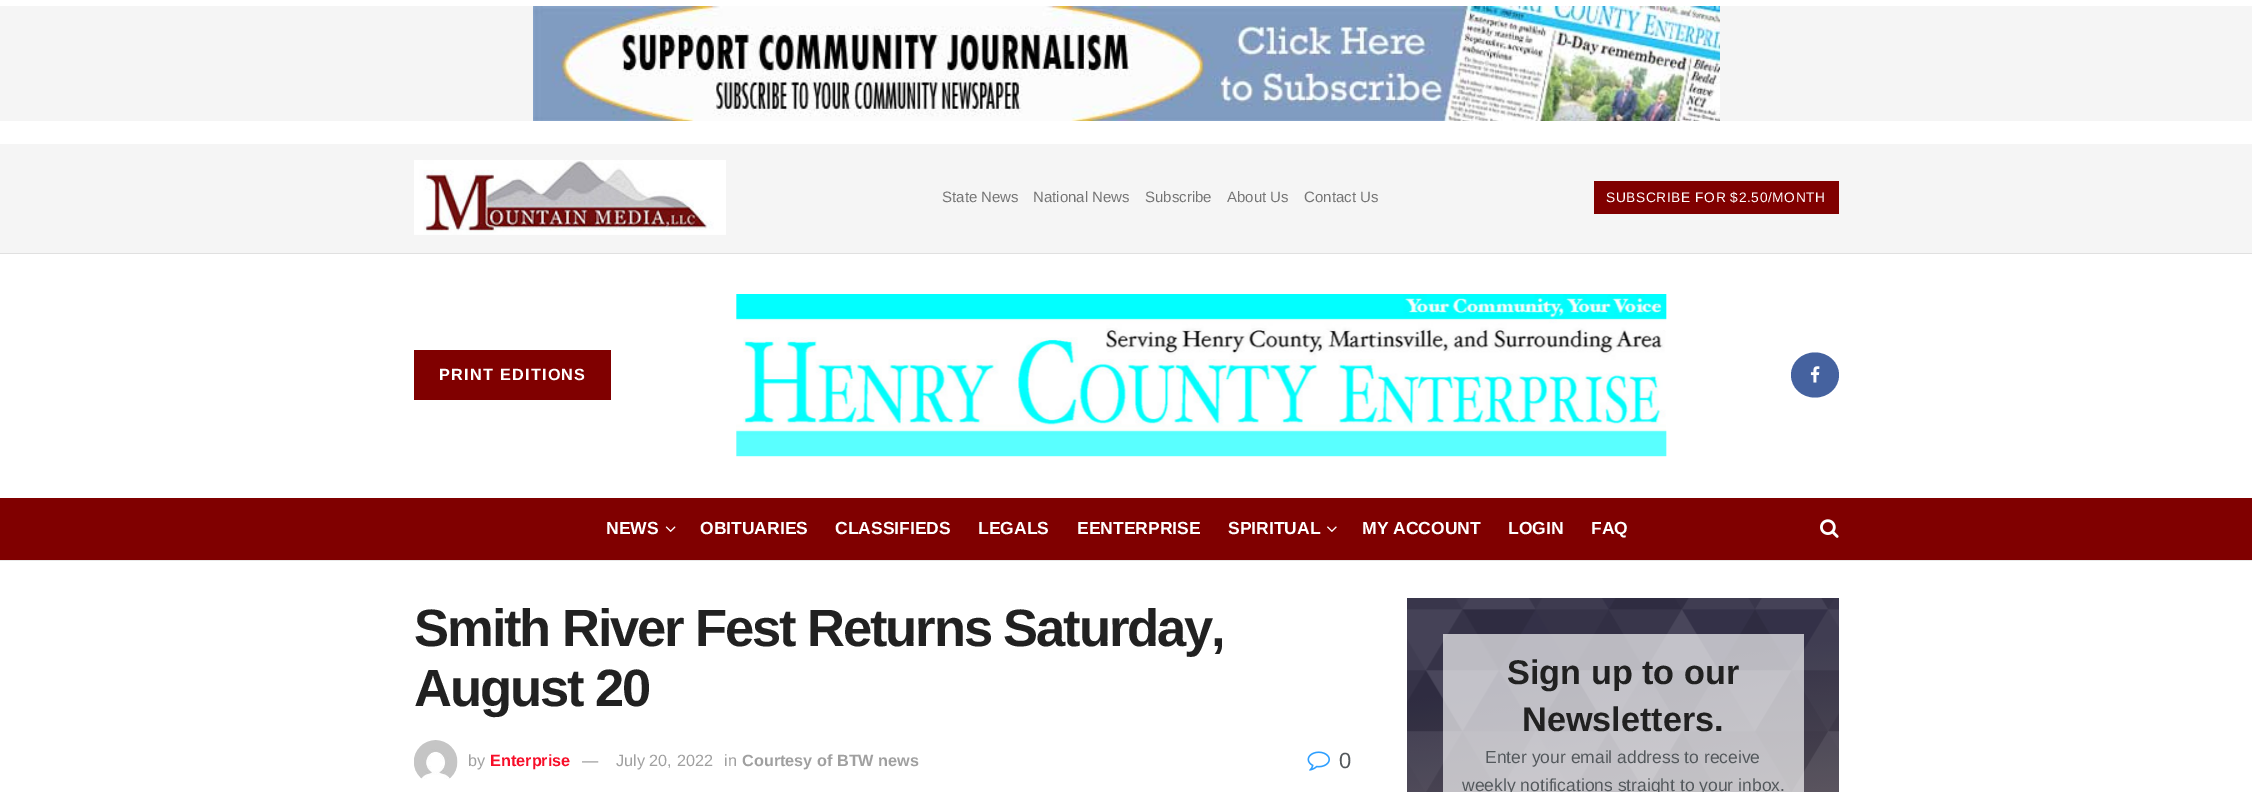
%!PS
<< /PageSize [2252 792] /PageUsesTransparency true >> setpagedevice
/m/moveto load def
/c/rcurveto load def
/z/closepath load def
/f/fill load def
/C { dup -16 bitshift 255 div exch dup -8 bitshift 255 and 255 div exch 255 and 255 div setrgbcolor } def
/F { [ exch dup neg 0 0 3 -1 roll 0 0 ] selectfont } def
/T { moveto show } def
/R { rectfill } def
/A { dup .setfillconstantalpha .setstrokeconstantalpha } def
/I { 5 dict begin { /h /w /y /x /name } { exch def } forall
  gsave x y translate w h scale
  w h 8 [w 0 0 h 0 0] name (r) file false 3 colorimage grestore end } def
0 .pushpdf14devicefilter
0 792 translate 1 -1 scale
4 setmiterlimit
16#FFFFFF C
0 0 2252 792 R
16#F5F5F5 C
0 6 2252 115 R
(1.rgb) 533 6 1187 115 I
0 144 2252 109 R
16#E0E0E0 C
0 253 2252 1 R
(2.rgb) 414 160 312 75 I
/LiberationSans-Regular 15 F
16#757575 C
(State News) 942 202 T
(National News) 1033 202 T
(Subscribe) 1145 202 T
(About Us) 1227 202 T
(Contact Us) 1304 202 T
16#800000 C
1594 181 245 33 R
/LiberationSans-Regular 13.75 F
16#FFFFFF C
1606 202 m .6 0 (SUBSCRIBE FOR $2.50/MONTH) ashow
16#800000 C
414 350 197 50 R
/LiberationSans-Bold 16.25 F
16#FFFFFF C
439 380 m 1.25 0 (PRINT EDITIONS) ashow
(3.rgb) 736 294 931 163 I
16#45629F C
1815 352.5 m 13.5 0 24 10 24 22.5 c 0 12.5 -10.5 22.5 -24 22.5 c -13.5 0 -24 -10 -24 -22.5 c 0 -12.5 10.5 -22.5 24 -22.5 c z f
(4.rgb) 1810 366 10 17 I
16#800000 C
0 498 2252 62 R
16#E8E8E8 C
0 560 2252 1 R
/LiberationSans-Bold 17.5 F
16#FFFFFF C
(NEWS) 606 534 T
(5.rgb) 665 526 11 6 I
(OBITUARIES) 700 534 T
(CLASSIFIEDS) 835 534 T
(LEGALS) 978 534 T
(EENTERPRISE) 1077 534 T
(SPIRITUAL) 1228 534 T
(6.rgb) 1327 526 10 6 I
(MY ACCOUNT) 1362 534 T
(LOGIN) 1508 534 T
(FAQ) 1591 534 T
(7.rgb) 1820 519 19 19 I
/LiberationSans-Bold 52.5 F
16#212121 C
414 646 m -2.1 0 (Smith River Fest Returns Saturday,) ashow
414 706 m -2.1 0 (August 20) ashow
(8.rgb) 414 740 44 39 I
/LiberationSans-Regular 16.25 F
16#A0A0A0 C
(by) 468 766 T
/LiberationSans-Bold 16.25 F
16#F70D28 C
(Enterprise) 490 766 T
/LiberationSans-Regular 16.25 F
16#A0A0A0 C
(—) 582 766 T
(July 20, 2022) 616 766 T
(in) 724 766 T
/LiberationSans-Bold 16.25 F
(Courtesy of BTW news) 742 766 T
(9.rgb) 1307 751 23 20 I
/LiberationSans-Regular 22 F
16#53585C C
(0) 1339 768 T
(10.rgb) 1407 598 432 194 I
0.67 A
16#FFFFFF C
1443 634 361 158 R
/LiberationSans-Bold 34.25 F
1 A
16#212121 C
(Sign up to our) 1507 684 T
(Newsletters.) 1522 731 T
/LiberationSans-Regular 17.5 F
16#53585C C
(Enter your email address to receive) 1485 763 T
(weekly notifications straight to your inbox.) 1462 791 T
.poppdf14devicefilter showpage
